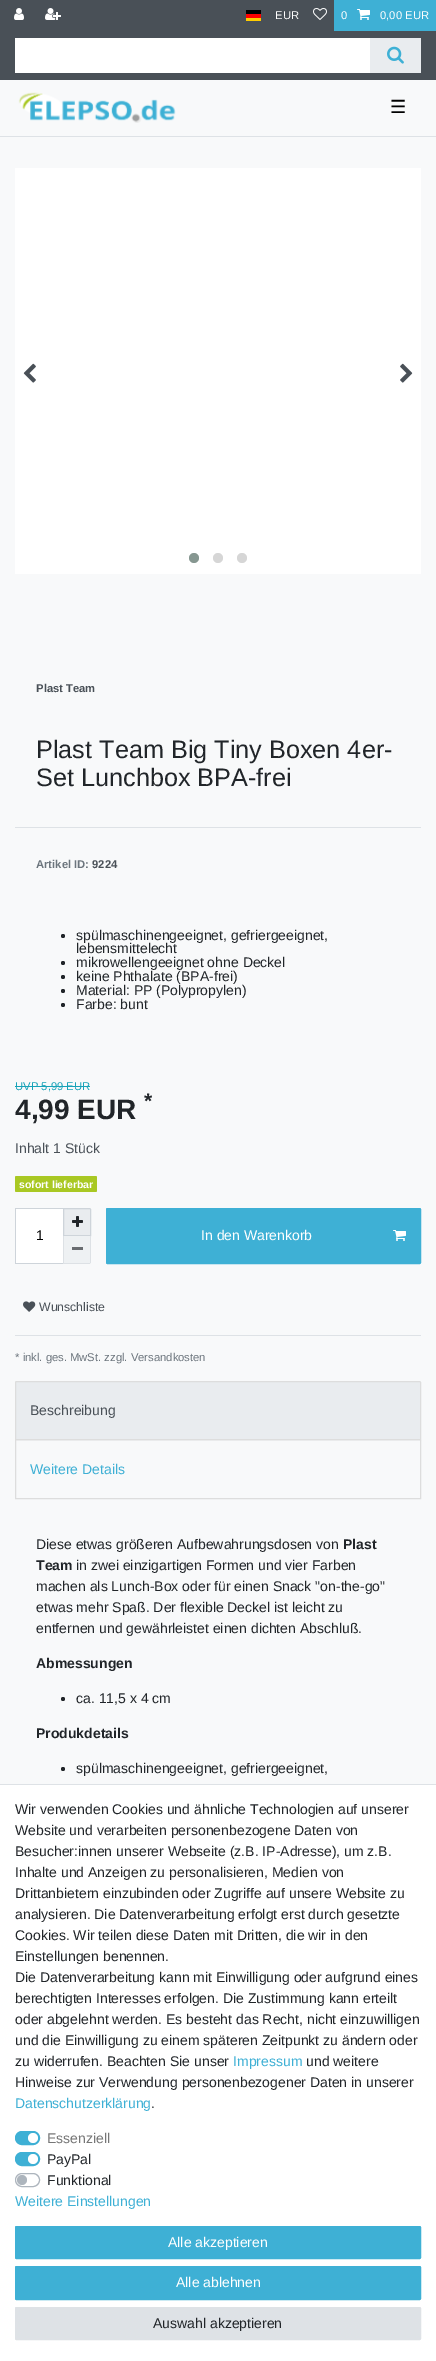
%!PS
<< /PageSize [436 2361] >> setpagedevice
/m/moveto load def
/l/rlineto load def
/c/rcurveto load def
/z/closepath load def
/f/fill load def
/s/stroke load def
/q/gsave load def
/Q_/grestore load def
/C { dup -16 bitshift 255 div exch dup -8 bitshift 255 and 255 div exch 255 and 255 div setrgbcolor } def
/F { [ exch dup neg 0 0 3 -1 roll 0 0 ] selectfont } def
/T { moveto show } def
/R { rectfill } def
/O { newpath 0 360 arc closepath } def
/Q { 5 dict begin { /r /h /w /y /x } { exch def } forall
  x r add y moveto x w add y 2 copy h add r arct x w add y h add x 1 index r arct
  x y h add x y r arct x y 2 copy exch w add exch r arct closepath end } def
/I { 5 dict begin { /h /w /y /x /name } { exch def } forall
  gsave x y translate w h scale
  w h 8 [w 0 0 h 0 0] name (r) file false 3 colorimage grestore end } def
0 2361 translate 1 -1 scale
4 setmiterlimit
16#F8F9FA C
0 0 436 2361 R
16#495057 C
0 0 436 80 R
(1.rgb) 14 8 10 12 I
(2.rgb) 45 8 16 12 I
16#FFCC00 C
246 18 15 3 R
16#000000 C
246 10 15 4 R
16#FF0000 C
246 14 15 4 R
/LiberationSans-Regular 11.25 F
16#FFFFFF C
(EUR) 275 19 T
(3.rgb) 313 8 14 12 I
16#3EB0D5 C
334 0 102 31 R
16#FFFFFF C
(0) 341 19 T
(4.rgb) 357 9 13 11 I
(0,00 EUR) 380 19 T
15 38 355 35 R
16#E9ECEF C
370 38 51 35 R
(5.rgb) 387 46 17 18 I
16#DEE2E6 C
0 136 436 1 R
(6.rgb) 18 92 158 31 I
/DejaVuSans-Regular 18 F
16#000000 C
(☰) 390 113 T
16#FFFFFF C
15 168 406 406 R
(7.rgb) 23 363 13 20 I
(8.rgb) 400 363 13 20 I
16#869791 C
194 558 5 O f
16#D6D6D6 C
218 558 5 O f
242 558 5 O f
/LiberationSans-Bold 11.25 F
16#495057 C
(Plast Team) 36 692 T
/LiberationSans-Regular 25.25 F
16#212529 C
(Plast Team Big Tiny Boxen 4er-) 36 758 T
(Set Lunchbox BPA-frei) 36 786 T
16#DEE2E6 C
15 827 406 1 R
/LiberationSans-Bold 11.25 F
16#6C757D C
(Artikel ID:) 36 868 T
16#495057 C
(9224) 92 868 T
16#212529 C
63 936 2 O f
/LiberationSans-Regular 14 F
(spülmaschinengeeignet, gefriergeeignet,) 76 940 T
(lebensmittelecht) 76 953 T
63 963 2 O f
(mikrowellengeeignet ohne Deckel) 76 967 T
63 977 2 O f
(keine Phthalate \(BPA-frei\)) 76 981 T
63 991 2 O f
(Material: PP \(Polypropylen\)) 76 995 T
63 1005 2 O f
(Farbe: bunt) 76 1009 T
/LiberationSans-Regular 11.25 F
16#17A2B8 C
(UVP 5,99 EUR) 15 1090 T
15 1086 75 1 R
/LiberationSans-Bold 21 F
16#212529 C
(*) 144 1108 T
/LiberationSans-Bold 28 F
(4,99 EUR) 15 1119 T
/LiberationSans-Regular 14 F
16#495057 C
(Inhalt 1 Stück) 15 1153 T
16#A9C823 C
15 1176 82 16 1.5 Q f
/LiberationSans-Bold 10.5 F
16#FFFFFF C
(sofort lieferbar) 19 1188 T
16 1209 47 54 R
16#CED4DA C
15 1208 48 1 R
15 1263 48 1 R
15 1208 1 56 R
/LiberationSans-Regular 14 F
16#000000 C
(1) 36 1240 T
16#E9ECEF C
63.5 1208.5 m 26 0 l .5 0 1 .5 1 1 c 0 26 l -27 0 l z q f Q_
16#CED4DA C
s
(9.rgb) 72 1216 11 11 I
16#EEF1F3 C
63 1236 m 28 0 l 0 26.5 l 0 1 -.5 1.5 -1.5 1.5 c -26.5 0 l z f
16#DDE1E5 C
90 1236 1 27 R
63 1263 27 1 R
63 1236 1 28 R
16#696C70 C
72 1247 11 3 R
16#3EB0D5 C
106.5 1208.5 314 55 1 Q q f Q_
s
16#FFFFFF C
(In den Warenkorb) 201 1240 T
(4.rgb) 393 1230 13 11 I
(10.rgb) 23 1301 13 11 I
/LiberationSans-Regular 12.25 F
16#495057 C
(Wunschliste) 39 1311 T
16#DEE2E6 C
15 1335 406 1 R
/LiberationSans-Regular 11.25 F
16#6C757D C
(* inkl. ges. MwSt. zzgl. Versandkosten) 15 1361 T
16#E9ECEF C
16.5 1381.5 m 403 0 l .5 0 1 .5 1 1 c 0 57 l -405 0 l 0 -57 l 0 -.5 .5 -1 1 -1 c z q f Q_
16#DDDDDD C
s
/LiberationSans-Regular 14 F
16#495057 C
(Beschreibung) 30 1415 T
16#DDDDDD C
16.5 1439.5 m 403 0 l .5 0 1 .5 1 1 c 0 58 l -405 0 l 0 -58 l 0 -.5 .5 -1 1 -1 c z s
16#3EB0D5 C
(Weitere Details) 30 1474 T
16#212529 C
(Diese etwas größeren Aufbewahrungsdosen von) 36 1549 T
/LiberationSans-Bold 14 F
(Plast) 343 1549 T
(Team) 36 1570 T
/LiberationSans-Regular 14 F
(in zwei einzigartigen Formen und vier Farben) 76 1570 T
(machen als Lunch-Box oder für einen Snack "on-the-go") 36 1591 T
(etwas mehr Spaß. Der flexible Deckel ist leicht zu) 36 1612 T
(entfernen und gewährleistet einen dichten Abschluß.) 36 1633 T
/LiberationSans-Bold 14 F
(Abmessungen) 36 1668 T
63 1699 2 O f
/LiberationSans-Regular 14 F
(ca. 11,5 x 4 cm) 76 1703 T
/LiberationSans-Bold 14 F
(Produkdetails) 36 1738 T
63 1769 2 O f
/LiberationSans-Regular 14 F
(spülmaschinengeeignet, gefriergeeignet,) 76 1773 T
16#FFFFFF C
0 1785 436 576 R
16#DEE2E6 C
0 1784 436 1 R
16#212529 C
(Wir verwenden Cookies und ähnliche Technologien auf unserer) 15 1814 T
(Website und verarbeiten personenbezogene Daten von) 15 1835 T
(Besucher:innen unserer Webseite \(z.B. IP-Adresse\), um z.B.) 15 1856 T
(Inhalte und Anzeigen zu personalisieren, Medien von) 15 1877 T
(Drittanbietern einzubinden oder Zugriffe auf unsere Website zu) 15 1898 T
(analysieren. Die Datenverarbeitung erfolgt erst durch gesetzte) 15 1919 T
(Cookies. Wir teilen diese Daten mit Dritten, die wir in den) 15 1940 T
(Einstellungen benennen.) 15 1961 T
(Die Datenverarbeitung kann mit Einwilligung oder aufgrund eines) 15 1982 T
(berechtigten Interesses erfolgen. Die Zustimmung kann erteilt) 15 2003 T
(oder abgelehnt werden. Es besteht das Recht, nicht einzuwilligen) 15 2024 T
(und die Einwilligung zu einem späteren Zeitpunkt zu ändern oder) 15 2045 T
(zu widerrufen. Beachten Sie unser) 15 2066 T
16#3EB0D5 C
(Impressum) 233 2066 T
16#212529 C
(und weitere) 306 2066 T
(Hinweise zur Verwendung personenbezogener Daten in unserer) 15 2087 T
16#3EB0D5 C
(Datenschutzerklärung) 15 2108 T
16#212529 C
(.) 151 2108 T
16#3EB0D5 C
15.5 2131.5 24 13 6.5 Q q f Q_
s
16#767676 C
(Essenziell) 47 2143 T
16#FFFFFF C
33 2138 5 O f
16#3EB0D5 C
15.5 2152.5 24 13 6.5 Q q f Q_
s
16#212529 C
(PayPal) 47 2164 T
16#FFFFFF C
33 2159 5 O f
16#ADB5BD C
15.5 2173.5 24 13 6.5 Q s
16#212529 C
(Funktional) 47 2185 T
16#ADB5BD C
22 2180 5 O f
16#3EB0D5 C
(Weitere Einstellungen) 15 2206 T
15.5 2226.5 405 32 1 Q q f Q_
s
16#FFFFFF C
(Alle akzeptieren) 168 2247 T
16#3EB0D5 C
15.5 2266.5 405 33 1 Q q f Q_
s
16#FFFFFF C
(Alle ablehnen) 176 2287 T
16#DEE2E6 C
15.5 2307.5 405 32 1 Q q f Q_
s
16#212529 C
(Auswahl akzeptieren) 153 2328 T
showpage
